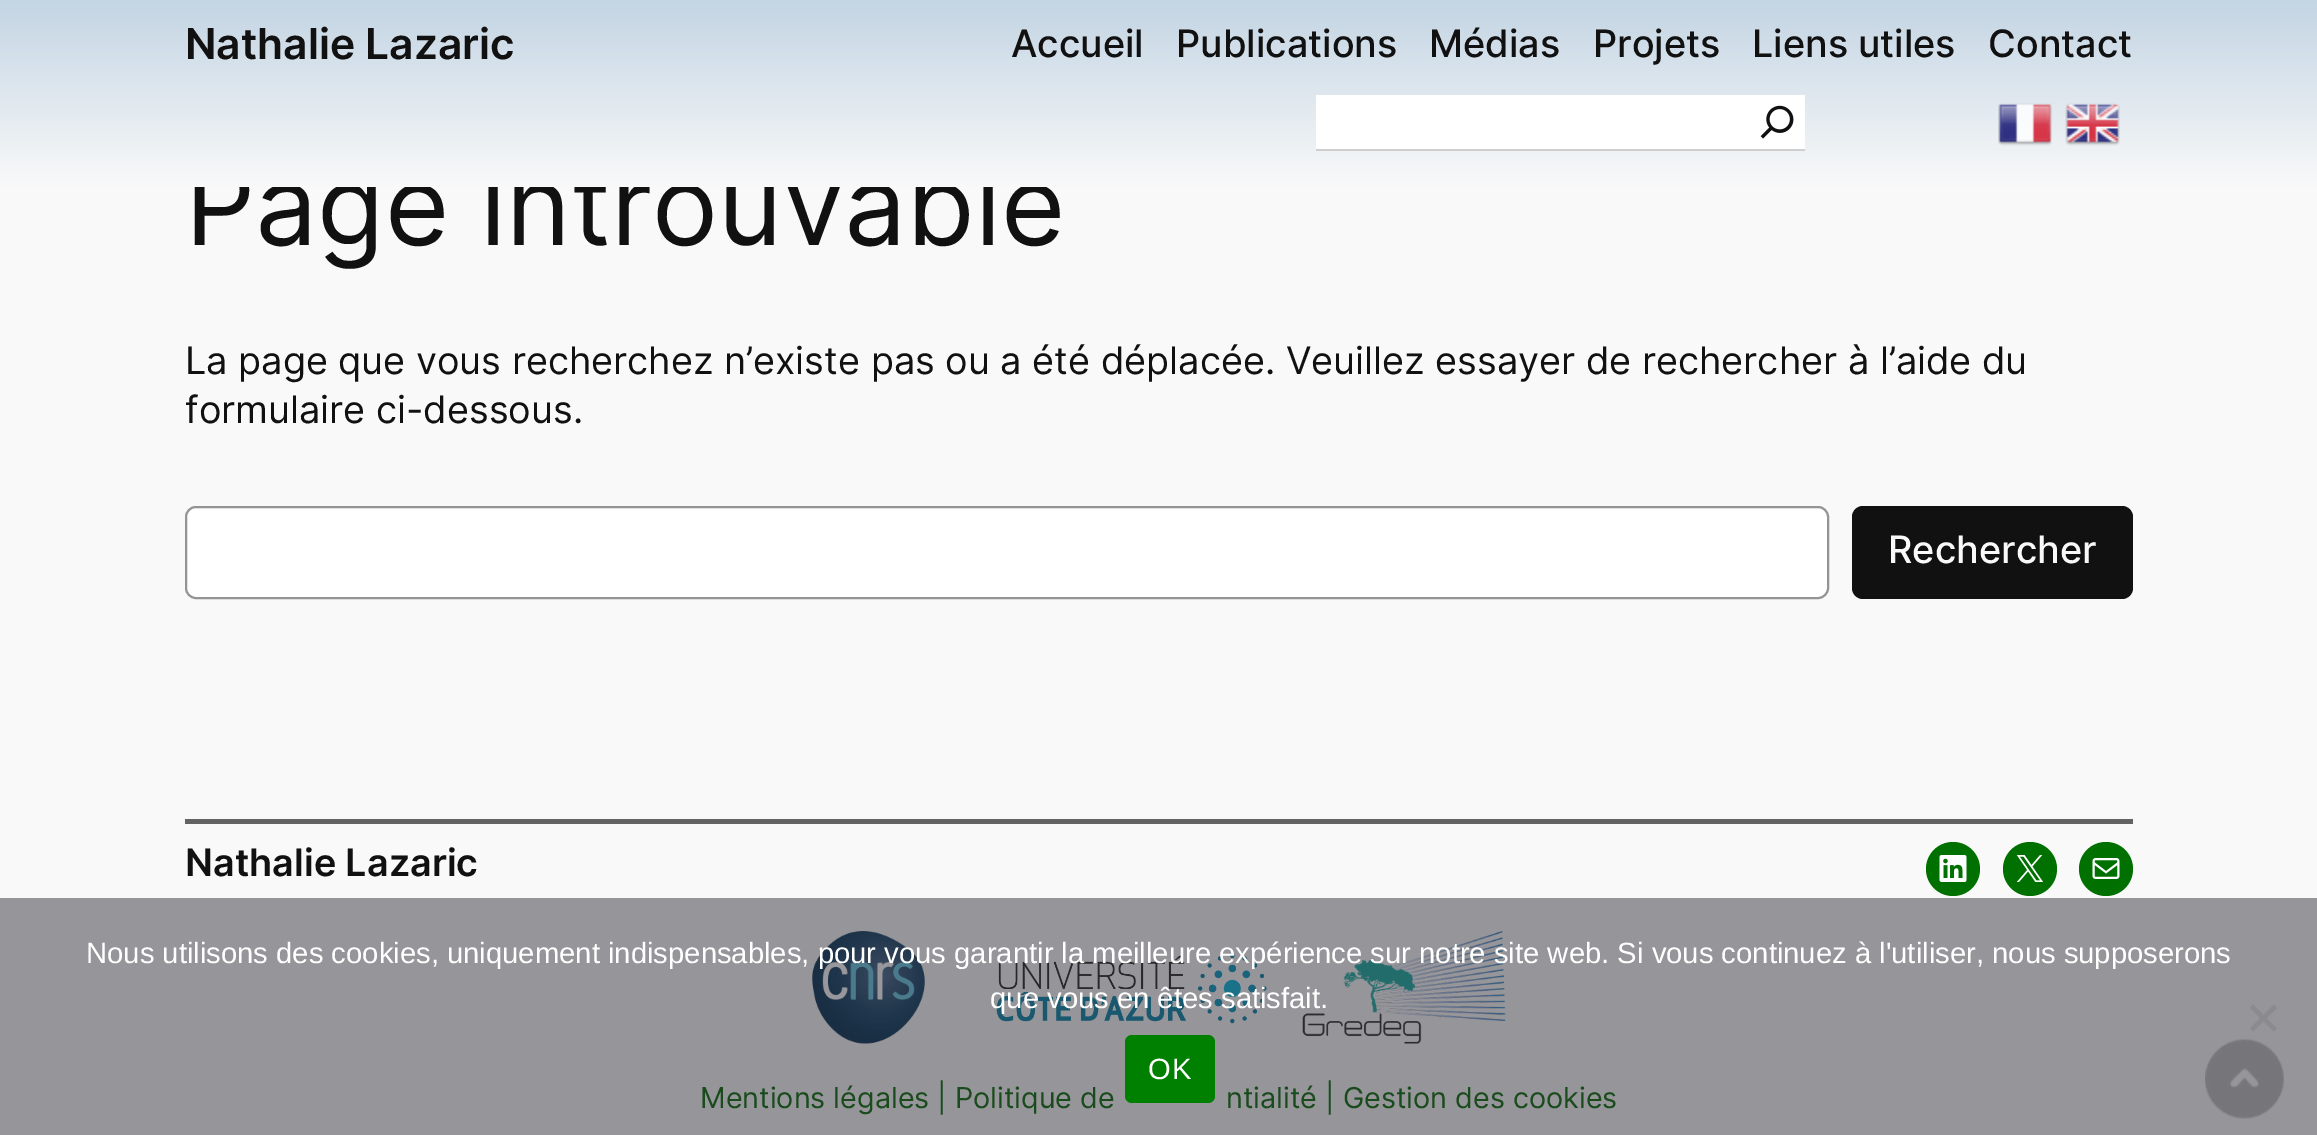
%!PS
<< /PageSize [2317 1135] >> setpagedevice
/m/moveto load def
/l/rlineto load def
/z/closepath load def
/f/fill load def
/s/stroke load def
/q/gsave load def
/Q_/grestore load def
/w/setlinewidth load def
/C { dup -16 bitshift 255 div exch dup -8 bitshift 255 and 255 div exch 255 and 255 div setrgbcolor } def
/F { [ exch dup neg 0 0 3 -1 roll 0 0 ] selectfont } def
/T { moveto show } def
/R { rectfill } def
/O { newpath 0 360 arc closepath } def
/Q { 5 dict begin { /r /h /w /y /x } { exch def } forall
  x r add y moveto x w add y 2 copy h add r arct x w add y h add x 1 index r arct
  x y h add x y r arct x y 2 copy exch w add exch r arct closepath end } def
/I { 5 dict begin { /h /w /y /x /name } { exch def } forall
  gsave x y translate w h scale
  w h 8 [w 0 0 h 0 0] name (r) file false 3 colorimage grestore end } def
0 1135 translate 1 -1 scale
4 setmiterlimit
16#F9F9F9 C
0 0 2317 1135 R
16#96969A C
0 898 2317 237 R
/Inter-Regular 110.5 F
16#111111 C
(Page introuvable) 185 245 T
q 0 0 m 2317 0 l 0 187 l -2317 0 l z clip newpath
<< /ShadingType 2 /ColorSpace /DeviceRGB /Coords [1159 0 1159 187] /Extend [true true] /Function << /FunctionType 3 /Domain [0 1] /Functions [<< /FunctionType 2 /Domain [0 1] /C0 [.769 .835 .894] /C1 [.769 .835 .894] /N 1 >> << /FunctionType 2 /Domain [0 1] /C0 [.769 .835 .894] /C1 [.976 .976 .976] /N 1 >>] /Bounds [.01] /Encode [0 1 0 1] >> >> shfill Q_
/Inter-SemiBold 42.5 F
(Nathalie Lazaric) 185 59 T
/Inter-Medium 37.8 F
(Accueil) 1011 57 T
(Publications) 1176 57 T
(Médias) 1429 57 T
(Projets) 1593 57 T
(Liens utiles) 1752 57 T
(Contact) 1988 57 T
16#FFFFFF C
1316 95 489 54 R
16#CFCFCF C
1316 149 489 2 R
(1.rgb) 1760 105 34 34 I
(2.rgb) 1998 103 54 43 I
(3.rgb) 2065 103 55 43 I
/Inter-Regular 37.8 F
16#111111 C
(La page que vous recherchez n’existe pas ou a été déplacée. Veuillez essayer de rechercher à l’aide du) 185 374 T
(formulaire ci-dessous.) 185 423 T
16#FFFFFF C
186 507 1642 91 10 Q q f Q_
16#949494 C
2 w
s
16#111111 C
1852 506 281 93 11 Q f
/Inter-Medium 37.8 F
16#F9F9F9 C
(Rechercher) 1888 563 T
16#636363 C
185 819 1948 5 R
/Inter-SemiBold 37.8 F
16#111111 C
(Nathalie Lazaric) 185 876 T
16#007000 C
1953 869 27 O f
(4.rgb) 1939 855 28 27 I
2030 869 27 O f
(5.rgb) 2016 855 28 27 I
2106 869 27 O f
(6.rgb) 2092 858 28 21 I
(7.rgb) 812 931 113 113 I
(8.rgb) 996 953 271 71 I
(9.rgb) 1302 931 204 113 I
/Inter-Regular 28.75 F
16#194B1D C
(Mentions légales | Politique de) 700 1108 T
(ntialité | Gestion des cookies) 1226 1108 T
/LiberationSans-Regular 29.25 F
16#FFFFFF C
(Nous utilisons des cookies, uniquement indispensables, pour vous garantir la meilleure expérience sur notre site web. Si vous continuez à l'utiliser, nous supposerons) 86 963 T
(que vous en êtes satisfait.) 990 1008 T
16#8B8B8D C
2274 1004.5 m 3 3.5 l -24 23.5 l -3 -3 l z f
2250 1008 m 3 -3.5 l 24 24 l -3 3 l z f
16#008000 C
1125 1035 90 68 7 Q f
16#FFFFFF C
1148 1079 m 1 0 (OK) ashow
(10.rgb) 2205 1039 79 80 I
showpage
